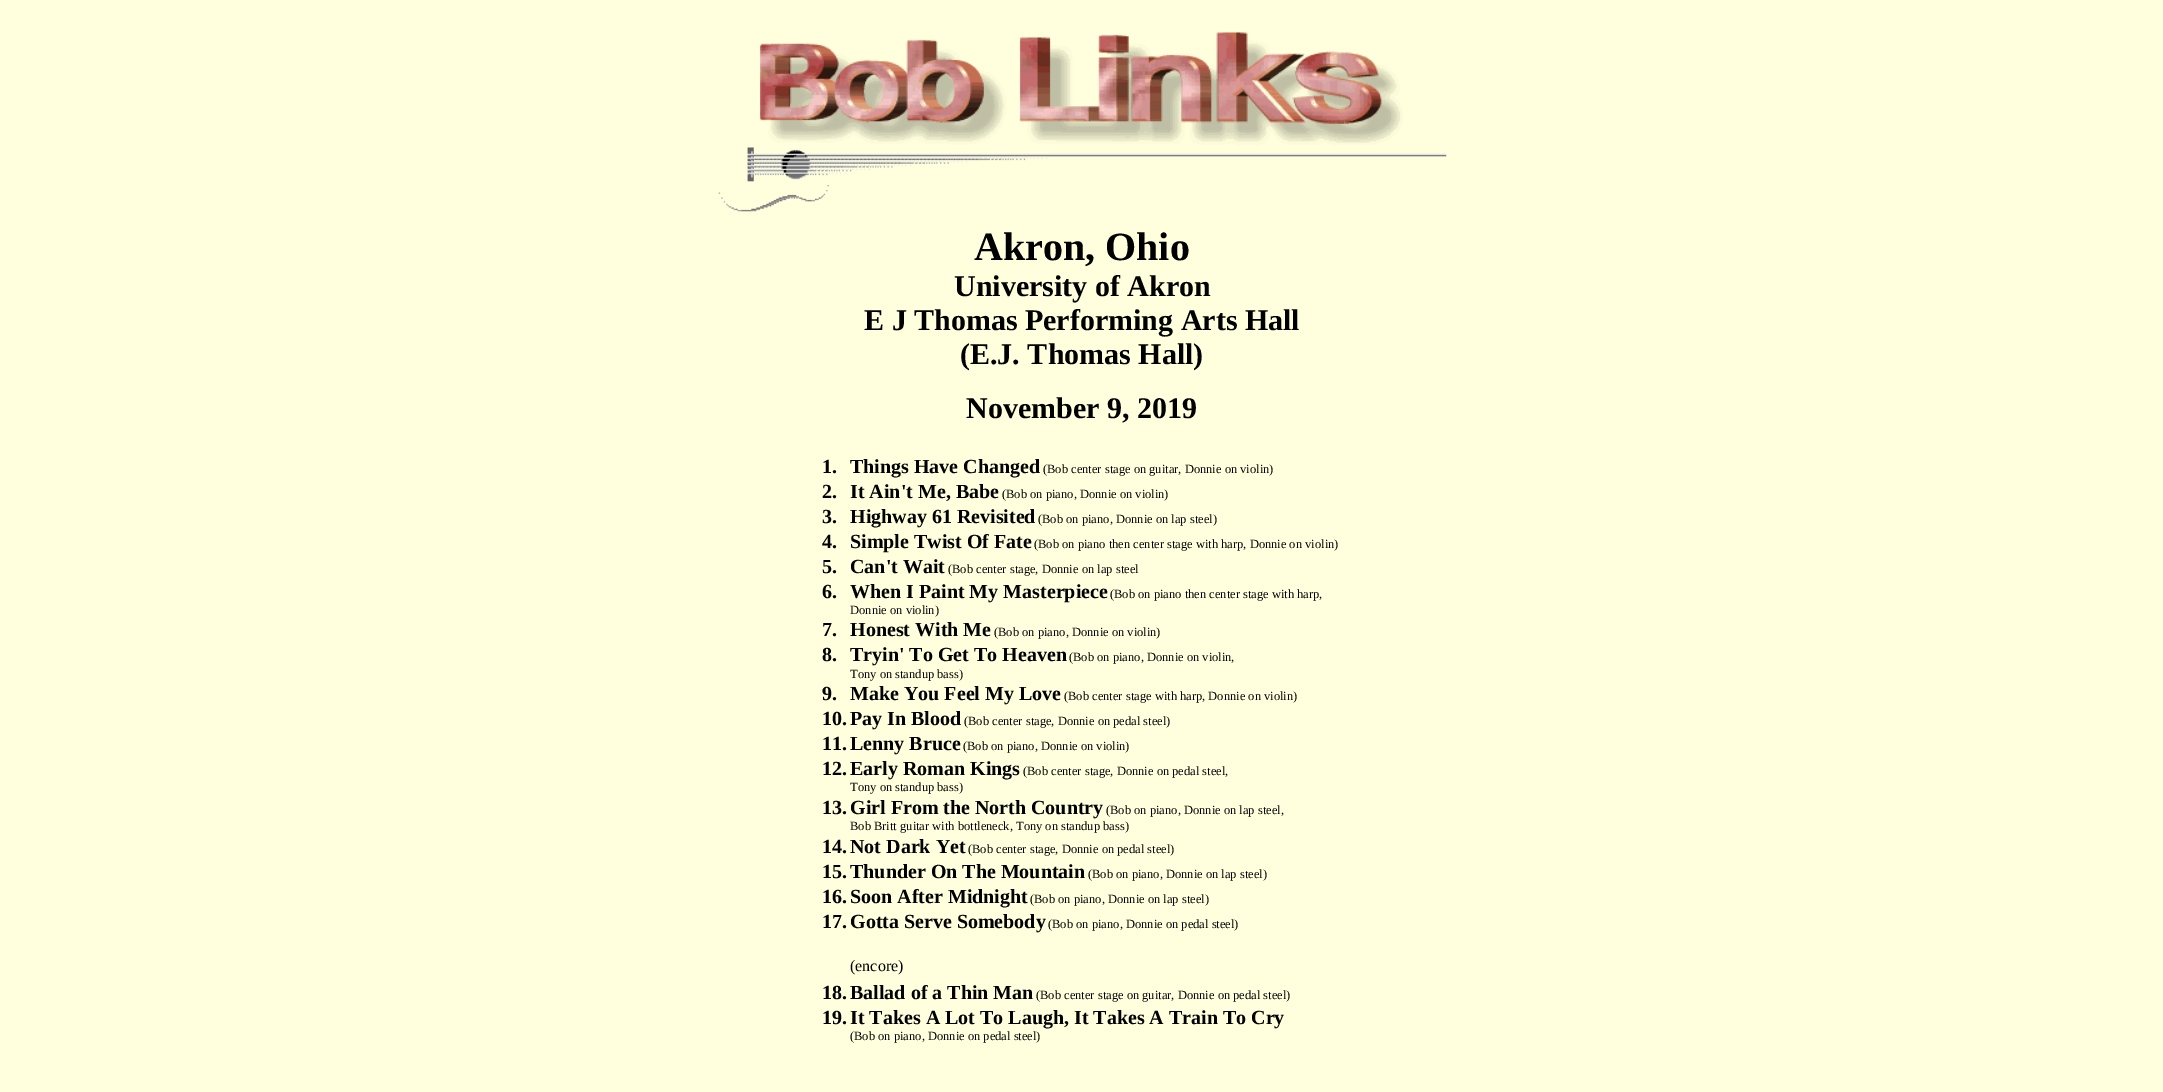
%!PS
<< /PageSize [2163 1092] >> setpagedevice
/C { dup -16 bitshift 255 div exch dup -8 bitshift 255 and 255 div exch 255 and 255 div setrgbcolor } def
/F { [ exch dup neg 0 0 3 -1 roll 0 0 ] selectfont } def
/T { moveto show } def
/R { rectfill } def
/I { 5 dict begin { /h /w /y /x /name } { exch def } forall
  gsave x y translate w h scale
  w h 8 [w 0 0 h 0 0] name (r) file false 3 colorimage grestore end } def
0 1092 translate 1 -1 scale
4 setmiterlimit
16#FFFFDD C
0 0 2163 1092 R
(1.rgb) 760 32 643 113 I
(2.rgb) 718 147 729 65 I
/LiberationSerif-Bold 40 F
16#000000 C
(Akron, Ohio) 974 260 T
/LiberationSerif-Bold 30 F
(University of Akron) 954 296 T
(E J Thomas Performing Arts Hall) 864 330 T
(\(E.J. Thomas Hall\)) 960 364 T
(November 9, 2019) 966 418 T
/LiberationSerif-Bold 20 F
(1.) 822 473 T
(Things Have Changed) 850 473 T
/LiberationSerif-Regular 12.5 F
(\(Bob center stage on guitar, Donnie on violin\)) 1043 473 T
/LiberationSerif-Bold 20 F
(2.) 822 498 T
(It Ain't Me, Babe) 850 498 T
/LiberationSerif-Regular 12.5 F
(\(Bob on piano, Donnie on violin\)) 1002 498 T
/LiberationSerif-Bold 20 F
(3.) 822 523 T
(Highway 61 Revisited) 850 523 T
/LiberationSerif-Regular 12.5 F
(\(Bob on piano, Donnie on lap steel\)) 1038 523 T
/LiberationSerif-Bold 20 F
(4.) 822 548 T
(Simple Twist Of Fate) 850 548 T
/LiberationSerif-Regular 12.5 F
(\(Bob on piano then center stage with harp, Donnie on violin\)) 1034 548 T
/LiberationSerif-Bold 20 F
(5.) 822 573 T
(Can't Wait) 850 573 T
/LiberationSerif-Regular 12.5 F
(\(Bob center stage, Donnie on lap steel) 948 573 T
/LiberationSerif-Bold 20 F
(6.) 822 598 T
(When I Paint My Masterpiece) 850 598 T
/LiberationSerif-Regular 12.5 F
(\(Bob on piano then center stage with harp,) 1110 598 T
(Donnie on violin\)) 850 614 T
/LiberationSerif-Bold 20 F
(7.) 822 636 T
(Honest With Me) 850 636 T
/LiberationSerif-Regular 12.5 F
(\(Bob on piano, Donnie on violin\)) 994 636 T
/LiberationSerif-Bold 20 F
(8.) 822 661 T
(Tryin' To Get To Heaven) 850 661 T
/LiberationSerif-Regular 12.5 F
(\(Bob on piano, Donnie on violin,) 1069 661 T
(Tony on standup bass\)) 850 678 T
/LiberationSerif-Bold 20 F
(9.) 822 700 T
(Make You Feel My Love) 850 700 T
/LiberationSerif-Regular 12.5 F
(\(Bob center stage with harp, Donnie on violin\)) 1064 700 T
/LiberationSerif-Bold 20 F
(10.) 822 725 T
(Pay In Blood) 850 725 T
/LiberationSerif-Regular 12.5 F
(\(Bob center stage, Donnie on pedal steel\)) 964 725 T
/LiberationSerif-Bold 20 F
(11.) 822 750 T
(Lenny Bruce) 850 750 T
/LiberationSerif-Regular 12.5 F
(\(Bob on piano, Donnie on violin\)) 963 750 T
/LiberationSerif-Bold 20 F
(12.) 822 775 T
(Early Roman Kings) 850 775 T
/LiberationSerif-Regular 12.5 F
(\(Bob center stage, Donnie on pedal steel,) 1023 775 T
(Tony on standup bass\)) 850 791 T
/LiberationSerif-Bold 20 F
(13.) 822 814 T
(Girl From the North Country) 850 814 T
/LiberationSerif-Regular 12.5 F
(\(Bob on piano, Donnie on lap steel,) 1106 814 T
(Bob Britt guitar with bottleneck, Tony on standup bass\)) 850 830 T
/LiberationSerif-Bold 20 F
(14.) 822 853 T
(Not Dark Yet) 850 853 T
/LiberationSerif-Regular 12.5 F
(\(Bob center stage, Donnie on pedal steel\)) 968 853 T
/LiberationSerif-Bold 20 F
(15.) 822 878 T
(Thunder On The Mountain) 850 878 T
/LiberationSerif-Regular 12.5 F
(\(Bob on piano, Donnie on lap steel\)) 1088 878 T
/LiberationSerif-Bold 20 F
(16.) 822 903 T
(Soon After Midnight) 850 903 T
/LiberationSerif-Regular 12.5 F
(\(Bob on piano, Donnie on lap steel\)) 1030 903 T
/LiberationSerif-Bold 20 F
(17.) 822 928 T
(Gotta Serve Somebody) 850 928 T
/LiberationSerif-Regular 12.5 F
(\(Bob on piano, Donnie on pedal steel\)) 1048 928 T
/LiberationSerif-Regular 16 F
(\(encore\)) 850 971 T
/LiberationSerif-Bold 20 F
(18.) 822 999 T
(Ballad of a Thin Man) 850 999 T
/LiberationSerif-Regular 12.5 F
(\(Bob center stage on guitar, Donnie on pedal steel\)) 1036 999 T
/LiberationSerif-Bold 20 F
(19.) 822 1024 T
(It Takes A Lot To Laugh, It Takes A Train To Cry) 850 1024 T
/LiberationSerif-Regular 12.5 F
(\(Bob on piano, Donnie on pedal steel\)) 850 1040 T
showpage
